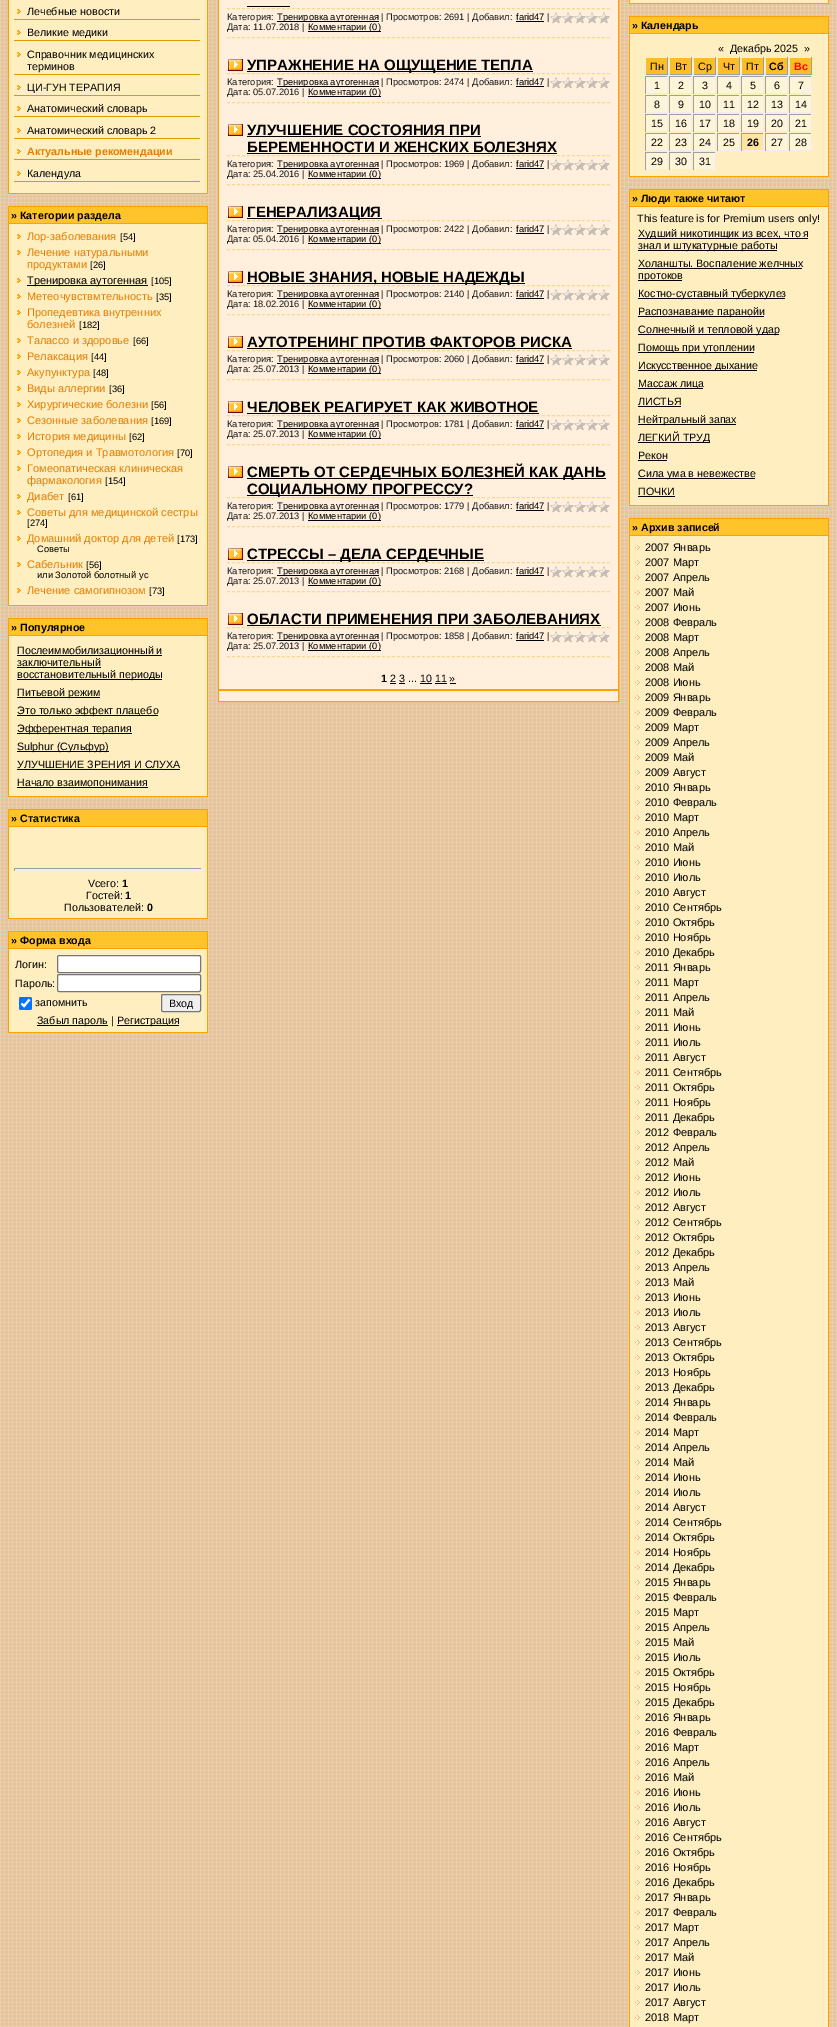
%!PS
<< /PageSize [837 2027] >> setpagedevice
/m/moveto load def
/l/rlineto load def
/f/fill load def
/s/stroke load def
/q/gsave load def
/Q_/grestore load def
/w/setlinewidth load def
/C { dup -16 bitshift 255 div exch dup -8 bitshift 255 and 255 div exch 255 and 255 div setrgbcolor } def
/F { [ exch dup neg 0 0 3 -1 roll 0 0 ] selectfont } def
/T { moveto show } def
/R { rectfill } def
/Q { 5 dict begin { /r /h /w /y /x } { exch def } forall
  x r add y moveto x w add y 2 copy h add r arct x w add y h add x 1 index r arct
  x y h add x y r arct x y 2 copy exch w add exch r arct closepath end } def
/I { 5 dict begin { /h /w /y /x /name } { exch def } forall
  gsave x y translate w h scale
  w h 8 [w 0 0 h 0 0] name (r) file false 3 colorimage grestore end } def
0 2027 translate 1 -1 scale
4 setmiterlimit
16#FFFFFF C
0 0 837 2027 R
(1.rgb) 0 0 837 2027 I
16#FFA200 C
8 0 200 194 R
16#FFEEC0 C
9 0 198 193 R
(2.rgb) 17 9 4 5 I
16#DA9A00 C
14 19 186 1 R
/LiberationSans-Regular 10.7 F
16#000000 C
(Лечебные новости) 27 15 T
(2.rgb) 17 30 4 5 I
16#DA9A00 C
14 40 186 1 R
16#000000 C
(Великие медики) 27 36 T
(2.rgb) 17 52 4 5 I
16#DA9A00 C
14 74 186 1 R
16#000000 C
(Справочник медицинских) 27 58 T
(терминов) 27 70 T
(2.rgb) 17 85 4 5 I
16#DA9A00 C
14 95 186 1 R
16#000000 C
(ЦИ-ГУН ТЕРАПИЯ) 27 91 T
(2.rgb) 17 106 4 5 I
16#DA9A00 C
14 116 186 1 R
16#000000 C
(Анатомический словарь) 27 112 T
(2.rgb) 17 128 4 5 I
16#DA9A00 C
14 138 186 1 R
16#000000 C
(Анатомический словарь 2) 27 134 T
(2.rgb) 17 149 4 5 I
16#DA9A00 C
14 159 186 1 R
/LiberationSans-Bold 10.7 F
16#E57D00 C
(Актуальные рекомендации) 27 155 T
(2.rgb) 17 171 4 5 I
16#DA9A00 C
14 181 186 1 R
/LiberationSans-Regular 10.7 F
16#000000 C
(Календула) 27 177 T
16#FFA200 C
8 206 200 400 R
16#FFC429 C
9 207 198 16 R
/LiberationSans-Bold 10.7 F
16#000000 C
(» Категории раздела) 11 219 T
16#FFEEC0 C
9 224 198 381 R
(2.rgb) 17 234 4 5 I
/LiberationSans-Regular 11 F
16#E57D00 C
(Лор-заболевания) 27 240 T
/LiberationSans-Regular 9.3 F
16#000000 C
([54]) 120 240 T
(2.rgb) 17 250 4 5 I
/LiberationSans-Regular 11 F
16#E57D00 C
(Лечение натуральными) 27 256 T
(продуктами) 27 268 T
/LiberationSans-Regular 9.3 F
16#000000 C
([26]) 90 268 T
(2.rgb) 17 278 4 5 I
27 285 121 1 R
/LiberationSans-Regular 11 F
(Тренировка аутогенная) 27 284 T
/LiberationSans-Regular 9.3 F
([105]) 151 284 T
(2.rgb) 17 294 4 5 I
/LiberationSans-Regular 11 F
16#E57D00 C
(Метеочувствмтельность) 27 300 T
/LiberationSans-Regular 9.3 F
16#000000 C
([35]) 156 300 T
(2.rgb) 17 310 4 5 I
/LiberationSans-Regular 11 F
16#E57D00 C
(Пропедевтика внутренних) 27 316 T
(болезней) 27 328 T
/LiberationSans-Regular 9.3 F
16#000000 C
([182]) 79 328 T
(2.rgb) 17 338 4 5 I
/LiberationSans-Regular 11 F
16#E57D00 C
(Талассо и здоровье) 27 344 T
/LiberationSans-Regular 9.3 F
16#000000 C
([66]) 133 344 T
(2.rgb) 17 354 4 5 I
/LiberationSans-Regular 11 F
16#E57D00 C
(Релаксация) 27 360 T
/LiberationSans-Regular 9.3 F
16#000000 C
([44]) 91 360 T
(2.rgb) 17 370 4 5 I
/LiberationSans-Regular 11 F
16#E57D00 C
(Акупунктура) 27 376 T
/LiberationSans-Regular 9.3 F
16#000000 C
([48]) 93 376 T
(2.rgb) 17 386 4 5 I
/LiberationSans-Regular 11 F
16#E57D00 C
(Виды аллергии) 27 392 T
/LiberationSans-Regular 9.3 F
16#000000 C
([36]) 109 392 T
(2.rgb) 17 402 4 5 I
/LiberationSans-Regular 11 F
16#E57D00 C
(Хирургические болезни) 27 408 T
/LiberationSans-Regular 9.3 F
16#000000 C
([56]) 151 408 T
(2.rgb) 17 418 4 5 I
/LiberationSans-Regular 11 F
16#E57D00 C
(Сезонные заболевания) 27 424 T
/LiberationSans-Regular 9.3 F
16#000000 C
([169]) 151 424 T
(2.rgb) 17 434 4 5 I
/LiberationSans-Regular 11 F
16#E57D00 C
(История медицины) 27 440 T
/LiberationSans-Regular 9.3 F
16#000000 C
([62]) 129 440 T
(2.rgb) 17 450 4 5 I
/LiberationSans-Regular 11 F
16#E57D00 C
(Ортопедия и Травмотология) 27 456 T
/LiberationSans-Regular 9.3 F
16#000000 C
([70]) 177 456 T
(2.rgb) 17 466 4 5 I
/LiberationSans-Regular 11 F
16#E57D00 C
(Гомеопатическая клиническая) 27 472 T
(фармакология) 27 484 T
/LiberationSans-Regular 9.3 F
16#000000 C
([154]) 105 484 T
(2.rgb) 17 494 4 5 I
/LiberationSans-Regular 11 F
16#E57D00 C
(Диабет) 27 500 T
/LiberationSans-Regular 9.3 F
16#000000 C
([61]) 68 500 T
(2.rgb) 17 510 4 5 I
/LiberationSans-Regular 11 F
16#E57D00 C
(Советы для медицинской сестры) 27 516 T
/LiberationSans-Regular 9.3 F
16#000000 C
([274]) 27 526 T
(2.rgb) 17 536 4 5 I
/LiberationSans-Regular 11 F
16#E57D00 C
(Домашний доктор для детей) 27 542 T
/LiberationSans-Regular 9.3 F
16#000000 C
([173]) 177 542 T
(Советы) 37 552 T
(2.rgb) 17 562 4 5 I
/LiberationSans-Regular 11 F
16#E57D00 C
(Сабельник) 27 568 T
/LiberationSans-Regular 9.3 F
16#000000 C
([56]) 86 568 T
(или Золотой болотный ус) 37 578 T
(2.rgb) 17 588 4 5 I
/LiberationSans-Regular 11 F
16#E57D00 C
(Лечение самогипнозом) 27 594 T
/LiberationSans-Regular 9.3 F
16#000000 C
([73]) 149 594 T
16#FFA200 C
8 618 200 179 R
16#FFC429 C
9 619 198 16 R
/LiberationSans-Bold 10.7 F
16#000000 C
(» Популярное) 11 631 T
16#FFEEC0 C
9 636 198 160 R
16#000000 C
17 655 145 1 R
/LiberationSans-Regular 10.7 F
(Послеиммобилизационный и) 17 654 T
(заключительный) 17 666 T
17 667 84 1 R
17 679 145 1 R
(восстановительный периоды) 17 678 T
17 697 83 1 R
(Питьевой режим) 17 696 T
17 715 141 1 R
(Это только эффект плацебо) 17 714 T
17 733 115 1 R
(Эфферентная терапия) 17 732 T
17 751 92 1 R
(Sulphur \(Сульфур\)) 17 750 T
(УЛУЧШЕНИЕ ЗРЕНИЯ И СЛУХА) 17 768 T
17 769 163 1 R
(Начало взаимопонимания) 17 786 T
17 787 131 1 R
16#FFA200 C
8 809 200 110 R
16#FFC429 C
9 810 198 16 R
/LiberationSans-Bold 10.7 F
16#000000 C
(» Статистика) 11 822 T
16#FFEEC0 C
9 827 198 91 R
16#9F9F9F C
14 868 188 1 R
16#EEEEEE C
201 868 1 3 R
14 870 188 1 R
16#9F9F9F C
14 868 1 3 R
/LiberationSans-Regular 10.7 F
16#000000 C
(Vсего:) 88 887 T
/LiberationSans-Bold 10.7 F
(1) 122 887 T
/LiberationSans-Regular 10.7 F
(Гостей:) 86 899 T
/LiberationSans-Bold 10.7 F
(1) 125 899 T
/LiberationSans-Regular 10.7 F
(Пользователей:) 64 911 T
/LiberationSans-Bold 10.7 F
(0) 147 911 T
16#FFA200 C
8 931 200 102 R
16#FFC429 C
9 932 198 16 R
16#000000 C
(» Форма входа) 11 944 T
16#FFEEC0 C
9 949 198 83 R
/LiberationSans-Regular 10.7 F
16#000000 C
(Логин:) 15 968 T
16#FFFFFF C
57.5 955.5 143 17 1.5 Q q f Q_
16#767676 C
s
16#000000 C
(Пароль:) 15 987 T
16#FFFFFF C
57.5 974.5 143 17 1.5 Q q f Q_
16#767676 C
s
16#0075FF C
19 997 13 13 2 Q f
16#FFFFFF C
2.1 w
21.5 1003.5 m 2.5 2.5 l 5.5 -6.5 l s
16#000000 C
(запомнить) 35 1006 T
16#EFEFEF C
161.5 994.5 39 17 1.5 Q q f Q_
16#767676 C
1 w
s
16#000000 C
(Вход) 169 1007 T
37 1025 71 1 R
(Забыл пароль |) 37 1024 T
117 1025 62 1 R
(Регистрация) 117 1024 T
16#FFA200 C
218.5 -.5 400 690 rectstroke
16#FFEFDC C
219 0 399 689 R
16#000000 C
247 6 43 1 R
16#F1DC92 C
[3 2] 0 setdash
227 8.5 m 383 0 l s
227 37.5 m 383 0 l s
/LiberationSans-Regular 9.3 F
16#1A1A1A C
(Категория:) 227 20 T
16#000000 C
277 21 102 1 R
(Тренировка аутогенная) 277 20 T
16#1A1A1A C
(| Просмотров: 2691 | Добавил:) 381 20 T
16#000000 C
(farid47) 516 20 T
516 21 28 1 R
16#1A1A1A C
(|) 547 20 T
(3.rgb) 550 12 60 12 I
(Дата: 11.07.2018 |) 227 30 T
16#000000 C
308 31 73 1 R
(Комментарии \(0\)) 308 30 T
(4.rgb) 228 59 15 12 I
247 71 286 1 R
/LiberationSans-Bold 15 F
(УПРАЖНЕНИЕ НА ОЩУЩЕНИЕ ТЕПЛА) 247 70 T
16#F1DC92 C
227 73.5 m 383 0 l s
227 102.5 m 383 0 l s
/LiberationSans-Regular 9.3 F
16#1A1A1A C
(Категория:) 227 85 T
16#000000 C
277 86 102 1 R
(Тренировка аутогенная) 277 85 T
16#1A1A1A C
(| Просмотров: 2474 | Добавил:) 381 85 T
16#000000 C
(farid47) 516 85 T
516 86 28 1 R
16#1A1A1A C
(|) 547 85 T
(3.rgb) 550 77 60 12 I
(Дата: 05.07.2016 |) 227 95 T
16#000000 C
308 96 73 1 R
(Комментарии \(0\)) 308 95 T
(4.rgb) 228 124 15 12 I
/LiberationSans-Bold 15 F
(УЛУЧШЕНИЕ СОСТОЯНИЯ ПРИ) 247 135 T
247 136 234 1 R
(БЕРЕМЕННОСТИ И ЖЕНСКИХ БОЛЕЗНЯХ) 247 152 T
247 153 310 1 R
16#F1DC92 C
227 155.5 m 383 0 l s
227 184.5 m 383 0 l s
/LiberationSans-Regular 9.3 F
16#1A1A1A C
(Категория:) 227 167 T
16#000000 C
277 168 102 1 R
(Тренировка аутогенная) 277 167 T
16#1A1A1A C
(| Просмотров: 1969 | Добавил:) 381 167 T
16#000000 C
(farid47) 516 167 T
516 168 28 1 R
16#1A1A1A C
(|) 547 167 T
(3.rgb) 550 159 60 12 I
(Дата: 25.04.2016 |) 227 177 T
16#000000 C
308 178 73 1 R
(Комментарии \(0\)) 308 177 T
(4.rgb) 228 206 15 12 I
247 218 135 1 R
/LiberationSans-Bold 15 F
(ГЕНЕРАЛИЗАЦИЯ) 247 217 T
16#F1DC92 C
227 220.5 m 383 0 l s
227 249.5 m 383 0 l s
/LiberationSans-Regular 9.3 F
16#1A1A1A C
(Категория:) 227 232 T
16#000000 C
277 233 102 1 R
(Тренировка аутогенная) 277 232 T
16#1A1A1A C
(| Просмотров: 2422 | Добавил:) 381 232 T
16#000000 C
(farid47) 516 232 T
516 233 28 1 R
16#1A1A1A C
(|) 547 232 T
(3.rgb) 550 224 60 12 I
(Дата: 05.04.2016 |) 227 242 T
16#000000 C
308 243 73 1 R
(Комментарии \(0\)) 308 242 T
(4.rgb) 228 271 15 12 I
247 283 278 1 R
/LiberationSans-Bold 15 F
(НОВЫЕ ЗНАНИЯ, НОВЫЕ НАДЕЖДЫ) 247 282 T
16#F1DC92 C
227 285.5 m 383 0 l s
227 314.5 m 383 0 l s
/LiberationSans-Regular 9.3 F
16#1A1A1A C
(Категория:) 227 297 T
16#000000 C
277 298 102 1 R
(Тренировка аутогенная) 277 297 T
16#1A1A1A C
(| Просмотров: 2140 | Добавил:) 381 297 T
16#000000 C
(farid47) 516 297 T
516 298 28 1 R
16#1A1A1A C
(|) 547 297 T
(3.rgb) 550 289 60 12 I
(Дата: 18.02.2016 |) 227 307 T
16#000000 C
308 308 73 1 R
(Комментарии \(0\)) 308 307 T
(4.rgb) 228 336 15 12 I
/LiberationSans-Bold 15 F
(АУТОТРЕНИНГ ПРОТИВ ФАКТОРОВ РИСКА) 247 347 T
247 348 325 1 R
16#F1DC92 C
227 350.5 m 383 0 l s
227 379.5 m 383 0 l s
/LiberationSans-Regular 9.3 F
16#1A1A1A C
(Категория:) 227 362 T
16#000000 C
277 363 102 1 R
(Тренировка аутогенная) 277 362 T
16#1A1A1A C
(| Просмотров: 2060 | Добавил:) 381 362 T
16#000000 C
(farid47) 516 362 T
516 363 28 1 R
16#1A1A1A C
(|) 547 362 T
(3.rgb) 550 354 60 12 I
(Дата: 25.07.2013 |) 227 372 T
16#000000 C
308 373 73 1 R
(Комментарии \(0\)) 308 372 T
(4.rgb) 228 401 15 12 I
/LiberationSans-Bold 15 F
(ЧЕЛОВЕК РЕАГИРУЕТ КАК ЖИВОТНОЕ) 247 412 T
247 413 292 1 R
16#F1DC92 C
227 415.5 m 383 0 l s
227 444.5 m 383 0 l s
/LiberationSans-Regular 9.3 F
16#1A1A1A C
(Категория:) 227 427 T
16#000000 C
277 428 102 1 R
(Тренировка аутогенная) 277 427 T
16#1A1A1A C
(| Просмотров: 1781 | Добавил:) 381 427 T
16#000000 C
(farid47) 516 427 T
516 428 28 1 R
16#1A1A1A C
(|) 547 427 T
(3.rgb) 550 419 60 12 I
(Дата: 25.07.2013 |) 227 437 T
16#000000 C
308 438 73 1 R
(Комментарии \(0\)) 308 437 T
(4.rgb) 228 466 15 12 I
247 478 359 1 R
/LiberationSans-Bold 15 F
(СМЕРТЬ ОТ СЕРДЕЧНЫХ БОЛЕЗНЕЙ КАК ДАНЬ) 247 477 T
247 495 226 1 R
(СОЦИАЛЬНОМУ ПРОГРЕССУ?) 247 494 T
16#F1DC92 C
227 497.5 m 383 0 l s
227 526.5 m 383 0 l s
/LiberationSans-Regular 9.3 F
16#1A1A1A C
(Категория:) 227 509 T
16#000000 C
277 510 102 1 R
(Тренировка аутогенная) 277 509 T
16#1A1A1A C
(| Просмотров: 1779 | Добавил:) 381 509 T
16#000000 C
(farid47) 516 509 T
516 510 28 1 R
16#1A1A1A C
(|) 547 509 T
(3.rgb) 550 501 60 12 I
(Дата: 25.07.2013 |) 227 519 T
16#000000 C
308 520 73 1 R
(Комментарии \(0\)) 308 519 T
(4.rgb) 228 548 15 12 I
247 560 237 1 R
/LiberationSans-Bold 15 F
(СТРЕССЫ – ДЕЛА СЕРДЕЧНЫЕ) 247 559 T
16#F1DC92 C
227 562.5 m 383 0 l s
227 591.5 m 383 0 l s
/LiberationSans-Regular 9.3 F
16#1A1A1A C
(Категория:) 227 574 T
16#000000 C
277 575 102 1 R
(Тренировка аутогенная) 277 574 T
16#1A1A1A C
(| Просмотров: 2168 | Добавил:) 381 574 T
16#000000 C
(farid47) 516 574 T
516 575 28 1 R
16#1A1A1A C
(|) 547 574 T
(3.rgb) 550 566 60 12 I
(Дата: 25.07.2013 |) 227 584 T
16#000000 C
308 585 73 1 R
(Комментарии \(0\)) 308 584 T
(4.rgb) 228 613 15 12 I
/LiberationSans-Bold 15 F
(ОБЛАСТИ ПРИМЕНЕНИЯ ПРИ ЗАБОЛЕВАНИЯХ) 247 624 T
247 625 354 1 R
16#F1DC92 C
227 627.5 m 383 0 l s
227 656.5 m 383 0 l s
/LiberationSans-Regular 9.3 F
16#1A1A1A C
(Категория:) 227 639 T
16#000000 C
277 640 102 1 R
(Тренировка аутогенная) 277 639 T
16#1A1A1A C
(| Просмотров: 1858 | Добавил:) 381 639 T
16#000000 C
(farid47) 516 639 T
516 640 28 1 R
16#1A1A1A C
(|) 547 639 T
(3.rgb) 550 631 60 12 I
(Дата: 25.07.2013 |) 227 649 T
16#000000 C
308 650 73 1 R
(Комментарии \(0\)) 308 649 T
/LiberationSans-Bold 10.7 F
(1) 381 682 T
/LiberationSans-Regular 10.7 F
(2 3 ... 10 11 ») 390 682 T
390 683 6 1 R
399 683 6 1 R
420 683 12 1 R
435 683 12 1 R
450 683 6 1 R
16#FFA200 C
[] 0 setdash
218.5 690.5 400 11 rectstroke
16#FFEFDC C
219 691 399 10 R
16#FFA200 C
629 0 200 4 R
16#FFEEC0 C
630 0 198 3 R
16#FFA200 C
629 16 200 161 R
16#FFC429 C
630 17 198 16 R
/LiberationSans-Bold 10.7 F
16#000000 C
(» Календарь) 632 29 T
16#FFEEC0 C
630 34 198 142 R
/LiberationSans-Regular 10.7 F
16#000000 C
(«) 718 52 T
(Декабрь 2025) 730 52 T
(») 804 52 T
16#FFBC29 C
646 58 21 16 R
16#EEEEEE C
645 57 23 1 R
16#9F9F9F C
667 57 1 18 R
645 74 23 1 R
16#EEEEEE C
645 57 1 18 R
16#000000 C
(Пн) 650 70 T
16#FFBC29 C
670 58 21 16 R
16#EEEEEE C
669 57 23 1 R
16#9F9F9F C
691 57 1 18 R
669 74 23 1 R
16#EEEEEE C
669 57 1 18 R
16#000000 C
(Вт) 675 70 T
16#FFBC29 C
694 58 21 16 R
16#EEEEEE C
693 57 23 1 R
16#9F9F9F C
715 57 1 18 R
693 74 23 1 R
16#EEEEEE C
693 57 1 18 R
16#000000 C
(Ср) 698 70 T
16#FFBC29 C
718 58 21 16 R
16#EEEEEE C
717 57 23 1 R
16#9F9F9F C
739 57 1 18 R
717 74 23 1 R
16#EEEEEE C
717 57 1 18 R
16#000000 C
(Чт) 723 70 T
16#FFBC29 C
742 58 21 16 R
16#EEEEEE C
741 57 23 1 R
16#9F9F9F C
763 57 1 18 R
741 74 23 1 R
16#EEEEEE C
741 57 1 18 R
16#000000 C
(Пт) 746 70 T
16#FFBC29 C
766 58 21 16 R
16#EEEEEE C
765 57 23 1 R
16#9F9F9F C
787 57 1 18 R
765 74 23 1 R
16#EEEEEE C
765 57 1 18 R
/LiberationSans-Bold 10.7 F
16#000000 C
(Сб) 769 70 T
16#FFBC29 C
790 58 21 16 R
16#EEEEEE C
789 57 23 1 R
16#9F9F9F C
811 57 1 18 R
789 74 23 1 R
16#EEEEEE C
789 57 1 18 R
16#FF0000 C
(Вс) 794 70 T
16#FEF4D8 C
646 77 21 16 R
16#9F9F9F C
645 76 23 1 R
16#EEEEEE C
667 76 1 18 R
645 93 23 1 R
16#9F9F9F C
645 76 1 18 R
/LiberationSans-Regular 10.7 F
16#000000 C
(1) 654 89 T
16#FEF4D8 C
670 77 21 16 R
16#9F9F9F C
669 76 23 1 R
16#EEEEEE C
691 76 1 18 R
669 93 23 1 R
16#9F9F9F C
669 76 1 18 R
16#000000 C
(2) 678 89 T
16#FEF4D8 C
694 77 21 16 R
16#9F9F9F C
693 76 23 1 R
16#EEEEEE C
715 76 1 18 R
693 93 23 1 R
16#9F9F9F C
693 76 1 18 R
16#000000 C
(3) 702 89 T
16#FEF4D8 C
718 77 21 16 R
16#9F9F9F C
717 76 23 1 R
16#EEEEEE C
739 76 1 18 R
717 93 23 1 R
16#9F9F9F C
717 76 1 18 R
16#000000 C
(4) 726 89 T
16#FEF4D8 C
742 77 21 16 R
16#9F9F9F C
741 76 23 1 R
16#EEEEEE C
763 76 1 18 R
741 93 23 1 R
16#9F9F9F C
741 76 1 18 R
16#000000 C
(5) 750 89 T
16#FEF4D8 C
766 77 21 16 R
16#9F9F9F C
765 76 23 1 R
16#EEEEEE C
787 76 1 18 R
765 93 23 1 R
16#9F9F9F C
765 76 1 18 R
16#000000 C
(6) 774 89 T
16#FEF4D8 C
790 77 21 16 R
16#9F9F9F C
789 76 23 1 R
16#EEEEEE C
811 76 1 18 R
789 93 23 1 R
16#9F9F9F C
789 76 1 18 R
16#000000 C
(7) 798 89 T
16#FEF4D8 C
646 96 21 16 R
16#9F9F9F C
645 95 23 1 R
16#EEEEEE C
667 95 1 18 R
645 112 23 1 R
16#9F9F9F C
645 95 1 18 R
16#000000 C
(8) 654 108 T
16#FEF4D8 C
670 96 21 16 R
16#9F9F9F C
669 95 23 1 R
16#EEEEEE C
691 95 1 18 R
669 112 23 1 R
16#9F9F9F C
669 95 1 18 R
16#000000 C
(9) 678 108 T
16#FEF4D8 C
694 96 21 16 R
16#9F9F9F C
693 95 23 1 R
16#EEEEEE C
715 95 1 18 R
693 112 23 1 R
16#9F9F9F C
693 95 1 18 R
16#000000 C
(10) 699 108 T
16#FEF4D8 C
718 96 21 16 R
16#9F9F9F C
717 95 23 1 R
16#EEEEEE C
739 95 1 18 R
717 112 23 1 R
16#9F9F9F C
717 95 1 18 R
16#000000 C
(11) 723 108 T
16#FEF4D8 C
742 96 21 16 R
16#9F9F9F C
741 95 23 1 R
16#EEEEEE C
763 95 1 18 R
741 112 23 1 R
16#9F9F9F C
741 95 1 18 R
16#000000 C
(12) 747 108 T
16#FEF4D8 C
766 96 21 16 R
16#9F9F9F C
765 95 23 1 R
16#EEEEEE C
787 95 1 18 R
765 112 23 1 R
16#9F9F9F C
765 95 1 18 R
16#000000 C
(13) 771 108 T
16#FEF4D8 C
790 96 21 16 R
16#9F9F9F C
789 95 23 1 R
16#EEEEEE C
811 95 1 18 R
789 112 23 1 R
16#9F9F9F C
789 95 1 18 R
16#000000 C
(14) 795 108 T
16#FEF4D8 C
646 115 21 16 R
16#9F9F9F C
645 114 23 1 R
16#EEEEEE C
667 114 1 18 R
645 131 23 1 R
16#9F9F9F C
645 114 1 18 R
16#000000 C
(15) 651 127 T
16#FEF4D8 C
670 115 21 16 R
16#9F9F9F C
669 114 23 1 R
16#EEEEEE C
691 114 1 18 R
669 131 23 1 R
16#9F9F9F C
669 114 1 18 R
16#000000 C
(16) 675 127 T
16#FEF4D8 C
694 115 21 16 R
16#9F9F9F C
693 114 23 1 R
16#EEEEEE C
715 114 1 18 R
693 131 23 1 R
16#9F9F9F C
693 114 1 18 R
16#000000 C
(17) 699 127 T
16#FEF4D8 C
718 115 21 16 R
16#9F9F9F C
717 114 23 1 R
16#EEEEEE C
739 114 1 18 R
717 131 23 1 R
16#9F9F9F C
717 114 1 18 R
16#000000 C
(18) 723 127 T
16#FEF4D8 C
742 115 21 16 R
16#9F9F9F C
741 114 23 1 R
16#EEEEEE C
763 114 1 18 R
741 131 23 1 R
16#9F9F9F C
741 114 1 18 R
16#000000 C
(19) 747 127 T
16#FEF4D8 C
766 115 21 16 R
16#9F9F9F C
765 114 23 1 R
16#EEEEEE C
787 114 1 18 R
765 131 23 1 R
16#9F9F9F C
765 114 1 18 R
16#000000 C
(20) 771 127 T
16#FEF4D8 C
790 115 21 16 R
16#9F9F9F C
789 114 23 1 R
16#EEEEEE C
811 114 1 18 R
789 131 23 1 R
16#9F9F9F C
789 114 1 18 R
16#000000 C
(21) 795 127 T
16#FEF4D8 C
646 134 21 16 R
16#9F9F9F C
645 133 23 1 R
16#EEEEEE C
667 133 1 18 R
645 150 23 1 R
16#9F9F9F C
645 133 1 18 R
16#000000 C
(22) 651 146 T
16#FEF4D8 C
670 134 21 16 R
16#9F9F9F C
669 133 23 1 R
16#EEEEEE C
691 133 1 18 R
669 150 23 1 R
16#9F9F9F C
669 133 1 18 R
16#000000 C
(23) 675 146 T
16#FEF4D8 C
694 134 21 16 R
16#9F9F9F C
693 133 23 1 R
16#EEEEEE C
715 133 1 18 R
693 150 23 1 R
16#9F9F9F C
693 133 1 18 R
16#000000 C
(24) 699 146 T
16#FEF4D8 C
718 134 21 16 R
16#9F9F9F C
717 133 23 1 R
16#EEEEEE C
739 133 1 18 R
717 150 23 1 R
16#9F9F9F C
717 133 1 18 R
16#000000 C
(25) 723 146 T
16#FFE3A5 C
742 134 21 16 R
16#9F9F9F C
741 133 23 1 R
16#EEEEEE C
763 133 1 18 R
741 150 23 1 R
16#9F9F9F C
741 133 1 18 R
/LiberationSans-Bold 10.7 F
16#000000 C
(26) 747 146 T
16#FEF4D8 C
766 134 21 16 R
16#9F9F9F C
765 133 23 1 R
16#EEEEEE C
787 133 1 18 R
765 150 23 1 R
16#9F9F9F C
765 133 1 18 R
/LiberationSans-Regular 10.7 F
16#000000 C
(27) 771 146 T
16#FEF4D8 C
790 134 21 16 R
16#9F9F9F C
789 133 23 1 R
16#EEEEEE C
811 133 1 18 R
789 150 23 1 R
16#9F9F9F C
789 133 1 18 R
16#000000 C
(28) 795 146 T
16#FEF4D8 C
646 153 21 16 R
16#9F9F9F C
645 152 23 1 R
16#EEEEEE C
667 152 1 18 R
645 169 23 1 R
16#9F9F9F C
645 152 1 18 R
16#000000 C
(29) 651 165 T
16#FEF4D8 C
670 153 21 16 R
16#9F9F9F C
669 152 23 1 R
16#EEEEEE C
691 152 1 18 R
669 169 23 1 R
16#9F9F9F C
669 152 1 18 R
16#000000 C
(30) 675 165 T
16#FEF4D8 C
694 153 21 16 R
16#9F9F9F C
693 152 23 1 R
16#EEEEEE C
715 152 1 18 R
693 169 23 1 R
16#9F9F9F C
693 152 1 18 R
16#000000 C
(31) 699 165 T
16#FFA200 C
629 189 200 317 R
16#FFC429 C
630 190 198 16 R
/LiberationSans-Bold 10.7 F
16#000000 C
(» Люди также читают) 632 202 T
16#FFEEC0 C
630 207 198 298 R
/LiberationSans-Regular 10.7 F
16#000000 C
(This feature is for Premium users only!) 637 222 T
638 238 170 1 R
(Худший никотинщик из всех, что я) 638 237 T
638 250 139 1 R
(знал и штукатурные работы) 638 249 T
(Холаншты. Воспаление желчных) 638 267 T
638 268 164 1 R
638 280 44 1 R
(протоков) 638 279 T
638 298 147 1 R
(Костно-суставный туберкулез) 638 297 T
638 316 126 1 R
(Распознавание паранойи) 638 315 T
638 334 141 1 R
(Солнечный и тепловой удар) 638 333 T
638 352 116 1 R
(Помощь при утоплении) 638 351 T
638 370 119 1 R
(Искусственное дыхание) 638 369 T
638 388 65 1 R
(Массаж лица) 638 387 T
(ЛИСТЬЯ) 638 405 T
638 406 43 1 R
638 424 98 1 R
(Нейтральный запах) 638 423 T
638 442 72 1 R
(ЛЕГКИЙ ТРУД) 638 441 T
(Рекон) 638 459 T
638 460 29 1 R
638 478 117 1 R
(Сила ума в невежестве) 638 477 T
(ПОЧКИ) 638 495 T
638 496 37 1 R
16#FFA200 C
629 518 200 1509 R
16#FFC429 C
630 519 198 16 R
/LiberationSans-Bold 10.7 F
16#000000 C
(» Архив записей) 632 531 T
16#FFEEC0 C
630 536 198 1491 R
(5.rgb) 635 545 5 5 I
/LiberationSans-Regular 11 F
16#000000 C
(2007 Январь) 645 551 T
(5.rgb) 635 560 5 5 I
(2007 Март) 645 566 T
(5.rgb) 635 575 5 5 I
(2007 Апрель) 645 581 T
(5.rgb) 635 590 5 5 I
(2007 Май) 645 596 T
(5.rgb) 635 605 5 5 I
(2007 Июнь) 645 611 T
(5.rgb) 635 620 5 5 I
(2008 Февраль) 645 626 T
(5.rgb) 635 635 5 5 I
(2008 Март) 645 641 T
(5.rgb) 635 650 5 5 I
(2008 Апрель) 645 656 T
(5.rgb) 635 665 5 5 I
(2008 Май) 645 671 T
(5.rgb) 635 680 5 5 I
(2008 Июнь) 645 686 T
(5.rgb) 635 695 5 5 I
(2009 Январь) 645 701 T
(5.rgb) 635 710 5 5 I
(2009 Февраль) 645 716 T
(5.rgb) 635 725 5 5 I
(2009 Март) 645 731 T
(5.rgb) 635 740 5 5 I
(2009 Апрель) 645 746 T
(5.rgb) 635 755 5 5 I
(2009 Май) 645 761 T
(5.rgb) 635 770 5 5 I
(2009 Август) 645 776 T
(5.rgb) 635 785 5 5 I
(2010 Январь) 645 791 T
(5.rgb) 635 800 5 5 I
(2010 Февраль) 645 806 T
(5.rgb) 635 815 5 5 I
(2010 Март) 645 821 T
(5.rgb) 635 830 5 5 I
(2010 Апрель) 645 836 T
(5.rgb) 635 845 5 5 I
(2010 Май) 645 851 T
(5.rgb) 635 860 5 5 I
(2010 Июнь) 645 866 T
(5.rgb) 635 875 5 5 I
(2010 Июль) 645 881 T
(5.rgb) 635 890 5 5 I
(2010 Август) 645 896 T
(5.rgb) 635 905 5 5 I
(2010 Сентябрь) 645 911 T
(5.rgb) 635 920 5 5 I
(2010 Октябрь) 645 926 T
(5.rgb) 635 935 5 5 I
(2010 Ноябрь) 645 941 T
(5.rgb) 635 950 5 5 I
(2010 Декабрь) 645 956 T
(5.rgb) 635 965 5 5 I
(2011 Январь) 645 971 T
(5.rgb) 635 980 5 5 I
(2011 Март) 645 986 T
(5.rgb) 635 995 5 5 I
(2011 Апрель) 645 1001 T
(5.rgb) 635 1010 5 5 I
(2011 Май) 645 1016 T
(5.rgb) 635 1025 5 5 I
(2011 Июнь) 645 1031 T
(5.rgb) 635 1040 5 5 I
(2011 Июль) 645 1046 T
(5.rgb) 635 1055 5 5 I
(2011 Август) 645 1061 T
(5.rgb) 635 1070 5 5 I
(2011 Сентябрь) 645 1076 T
(5.rgb) 635 1085 5 5 I
(2011 Октябрь) 645 1091 T
(5.rgb) 635 1100 5 5 I
(2011 Ноябрь) 645 1106 T
(5.rgb) 635 1115 5 5 I
(2011 Декабрь) 645 1121 T
(5.rgb) 635 1130 5 5 I
(2012 Февраль) 645 1136 T
(5.rgb) 635 1145 5 5 I
(2012 Апрель) 645 1151 T
(5.rgb) 635 1160 5 5 I
(2012 Май) 645 1166 T
(5.rgb) 635 1175 5 5 I
(2012 Июнь) 645 1181 T
(5.rgb) 635 1190 5 5 I
(2012 Июль) 645 1196 T
(5.rgb) 635 1205 5 5 I
(2012 Август) 645 1211 T
(5.rgb) 635 1220 5 5 I
(2012 Сентябрь) 645 1226 T
(5.rgb) 635 1235 5 5 I
(2012 Октябрь) 645 1241 T
(5.rgb) 635 1250 5 5 I
(2012 Декабрь) 645 1256 T
(5.rgb) 635 1265 5 5 I
(2013 Апрель) 645 1271 T
(5.rgb) 635 1280 5 5 I
(2013 Май) 645 1286 T
(5.rgb) 635 1295 5 5 I
(2013 Июнь) 645 1301 T
(5.rgb) 635 1310 5 5 I
(2013 Июль) 645 1316 T
(5.rgb) 635 1325 5 5 I
(2013 Август) 645 1331 T
(5.rgb) 635 1340 5 5 I
(2013 Сентябрь) 645 1346 T
(5.rgb) 635 1355 5 5 I
(2013 Октябрь) 645 1361 T
(5.rgb) 635 1370 5 5 I
(2013 Ноябрь) 645 1376 T
(5.rgb) 635 1385 5 5 I
(2013 Декабрь) 645 1391 T
(5.rgb) 635 1400 5 5 I
(2014 Январь) 645 1406 T
(5.rgb) 635 1415 5 5 I
(2014 Февраль) 645 1421 T
(5.rgb) 635 1430 5 5 I
(2014 Март) 645 1436 T
(5.rgb) 635 1445 5 5 I
(2014 Апрель) 645 1451 T
(5.rgb) 635 1460 5 5 I
(2014 Май) 645 1466 T
(5.rgb) 635 1475 5 5 I
(2014 Июнь) 645 1481 T
(5.rgb) 635 1490 5 5 I
(2014 Июль) 645 1496 T
(5.rgb) 635 1505 5 5 I
(2014 Август) 645 1511 T
(5.rgb) 635 1520 5 5 I
(2014 Сентябрь) 645 1526 T
(5.rgb) 635 1535 5 5 I
(2014 Октябрь) 645 1541 T
(5.rgb) 635 1550 5 5 I
(2014 Ноябрь) 645 1556 T
(5.rgb) 635 1565 5 5 I
(2014 Декабрь) 645 1571 T
(5.rgb) 635 1580 5 5 I
(2015 Январь) 645 1586 T
(5.rgb) 635 1595 5 5 I
(2015 Февраль) 645 1601 T
(5.rgb) 635 1610 5 5 I
(2015 Март) 645 1616 T
(5.rgb) 635 1625 5 5 I
(2015 Апрель) 645 1631 T
(5.rgb) 635 1640 5 5 I
(2015 Май) 645 1646 T
(5.rgb) 635 1655 5 5 I
(2015 Июль) 645 1661 T
(5.rgb) 635 1670 5 5 I
(2015 Октябрь) 645 1676 T
(5.rgb) 635 1685 5 5 I
(2015 Ноябрь) 645 1691 T
(5.rgb) 635 1700 5 5 I
(2015 Декабрь) 645 1706 T
(5.rgb) 635 1715 5 5 I
(2016 Январь) 645 1721 T
(5.rgb) 635 1730 5 5 I
(2016 Февраль) 645 1736 T
(5.rgb) 635 1745 5 5 I
(2016 Март) 645 1751 T
(5.rgb) 635 1760 5 5 I
(2016 Апрель) 645 1766 T
(5.rgb) 635 1775 5 5 I
(2016 Май) 645 1781 T
(5.rgb) 635 1790 5 5 I
(2016 Июнь) 645 1796 T
(5.rgb) 635 1805 5 5 I
(2016 Июль) 645 1811 T
(5.rgb) 635 1820 5 5 I
(2016 Август) 645 1826 T
(5.rgb) 635 1835 5 5 I
(2016 Сентябрь) 645 1841 T
(5.rgb) 635 1850 5 5 I
(2016 Октябрь) 645 1856 T
(5.rgb) 635 1865 5 5 I
(2016 Ноябрь) 645 1871 T
(5.rgb) 635 1880 5 5 I
(2016 Декабрь) 645 1886 T
(5.rgb) 635 1895 5 5 I
(2017 Январь) 645 1901 T
(5.rgb) 635 1910 5 5 I
(2017 Февраль) 645 1916 T
(5.rgb) 635 1925 5 5 I
(2017 Март) 645 1931 T
(5.rgb) 635 1940 5 5 I
(2017 Апрель) 645 1946 T
(5.rgb) 635 1955 5 5 I
(2017 Май) 645 1961 T
(5.rgb) 635 1970 5 5 I
(2017 Июнь) 645 1976 T
(5.rgb) 635 1985 5 5 I
(2017 Июль) 645 1991 T
(5.rgb) 635 2000 5 5 I
(2017 Август) 645 2006 T
(5.rgb) 635 2015 5 5 I
(2018 Март) 645 2021 T
showpage
